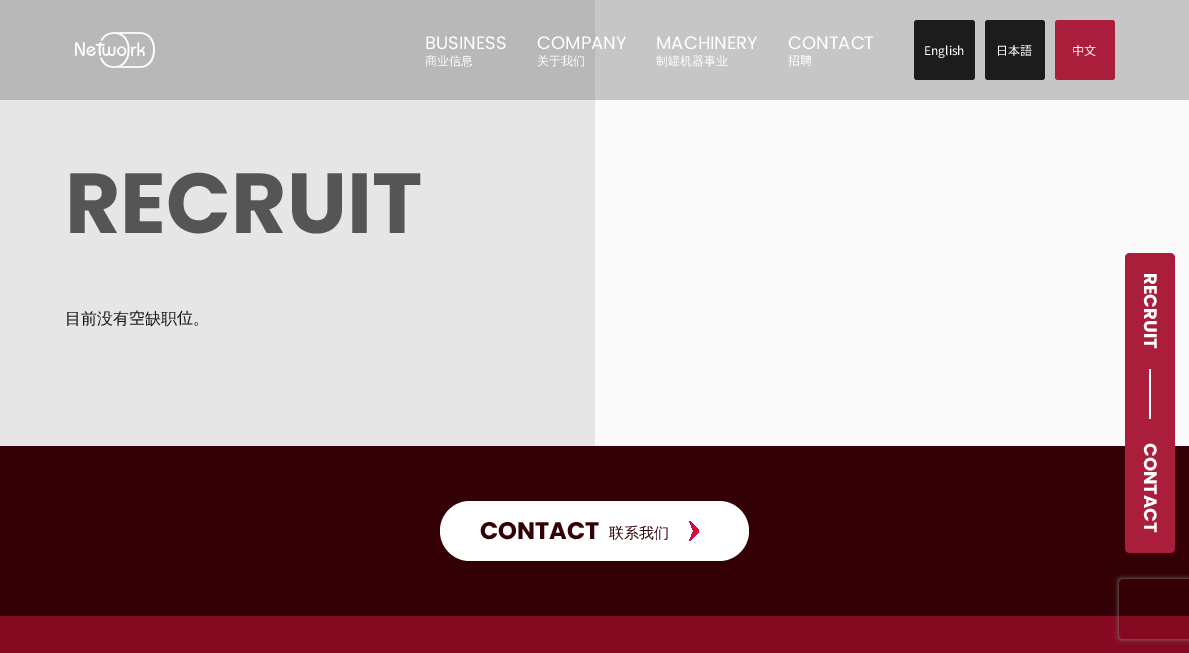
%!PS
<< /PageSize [1189 653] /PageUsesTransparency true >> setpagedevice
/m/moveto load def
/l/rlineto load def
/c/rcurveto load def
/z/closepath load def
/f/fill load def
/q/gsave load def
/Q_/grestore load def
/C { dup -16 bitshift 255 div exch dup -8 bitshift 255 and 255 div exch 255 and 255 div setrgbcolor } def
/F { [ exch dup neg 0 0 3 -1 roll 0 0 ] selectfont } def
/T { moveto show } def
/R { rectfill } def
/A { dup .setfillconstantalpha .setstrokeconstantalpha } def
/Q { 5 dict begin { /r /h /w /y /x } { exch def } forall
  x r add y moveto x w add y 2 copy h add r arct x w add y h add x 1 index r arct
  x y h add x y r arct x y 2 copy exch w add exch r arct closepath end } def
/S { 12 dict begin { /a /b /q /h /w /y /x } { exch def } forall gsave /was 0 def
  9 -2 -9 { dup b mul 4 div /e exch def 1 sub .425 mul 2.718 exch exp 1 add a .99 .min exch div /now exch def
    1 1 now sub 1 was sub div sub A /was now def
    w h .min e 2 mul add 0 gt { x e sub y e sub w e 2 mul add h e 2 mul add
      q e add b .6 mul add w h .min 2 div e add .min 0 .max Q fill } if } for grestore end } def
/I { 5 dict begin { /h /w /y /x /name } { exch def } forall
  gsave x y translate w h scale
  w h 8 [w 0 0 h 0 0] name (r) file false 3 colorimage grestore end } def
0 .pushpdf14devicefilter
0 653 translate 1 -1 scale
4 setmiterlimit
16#FAFAFA C
0 0 1189 653 R
16#B8B8B8 C
0 0 595 100 R
(1.rgb) 75 32 80 36 I
/Poppins-Regular 18 F
16#FFFFFF C
(BUSINESS) 425 49 T
/WenQuanYiZenHei-Medium 12 F
(商业信息) 425 65 T
16#C6C6C6 C
595 0 594 100 R
/Poppins-Regular 18 F
16#FFFFFF C
(COMPANY) 537 49 T
/WenQuanYiZenHei-Medium 12 F
(关于我们) 537 65 T
/Poppins-Regular 18 F
(MACHINERY) 656 49 T
/WenQuanYiZenHei-Medium 12 F
(制罐机器事业) 656 65 T
/Poppins-Regular 18 F
(CONTACT) 788 49 T
/NotoSansJP-Regular 12 F
(招聘) 788 65 T
16#1C1C1C C
914 20 61 60 3 Q f
16#FFFFFF C
(English) 924 55 T
16#1C1C1C C
985 20 60 60 3 Q f
16#FFFFFF C
(日本語) 996 55 T
16#AA1E3B C
1055 20 60 60 3 Q f
16#FFFFFF C
(中文) 1072 55 T
16#E6E6E6 C
0 100 595 346 R
/Poppins-Bold 85 F
16#555555 C
(RECRUIT) 65 233 T
/WenQuanYiZenHei-Medium 16 F
16#1A1515 C
(目前没有) 65 324 T
/NotoSansJP-Regular 16 F
(空) 129 324 T
/WenQuanYiZenHei-Medium 16 F
(缺职) 145 324 T
/NotoSansJP-Regular 16 F
(位) 177 324 T
/WenQuanYiZenHei-Medium 16 F
(。) 193 324 T
16#320005 C
0 446 1189 170 R
16#FFFFFF C
440 501 309 60 30 Q f
/Poppins-Bold 24 F
16#320005 C
(CONTACT) 480 539 T
/WenQuanYiZenHei-Medium 15 F
(联系我们) 609 538 T
q 689.5 521 m 9.5 10 l 0 .5 l -9.5 9.5 l 4 -10 l z clip newpath
<< /ShadingType 2 /ColorSpace /DeviceRGB /Coords [679 531 699 531] /Extend [true true] /Function << /FunctionType 2 /Domain [0 1] /C0 [.671 .075 .141] /C1 [.925 .024 .267] /N 1 >> >> shfill Q_
16#850A21 C
0 616 1189 37 R
16#AA1E3B C
1175 258 m 0 290 l 0 3 -2 5 -5 5 c -40 0 l -3 0 -5 -2 -5 -5 c 0 -290 l 0 -3 2 -5 5 -5 c 40 0 l 3 0 5 2 5 5 c z f
/Poppins-Bold 18 F
16#FFFFFF C
q 1144 273 translate 90 rotate 0 0 m (RECRUIT) show Q_
1149 369 2 50 R
q 1144 443 translate 90 rotate 0 0 m (CONTACT) show Q_
q
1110 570 m 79 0 l 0 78 l -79 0 l z 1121 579 m 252 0 l 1 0 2 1 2 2 c 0 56 l 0 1 -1 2 -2 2 c -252 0 l -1 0 -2 -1 -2 -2 c 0 -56 l 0 -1 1 -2 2 -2 c z eoclip newpath
16#808080 C
1119 579 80 60 2 2.5 1 S
Q_
.poppdf14devicefilter showpage
